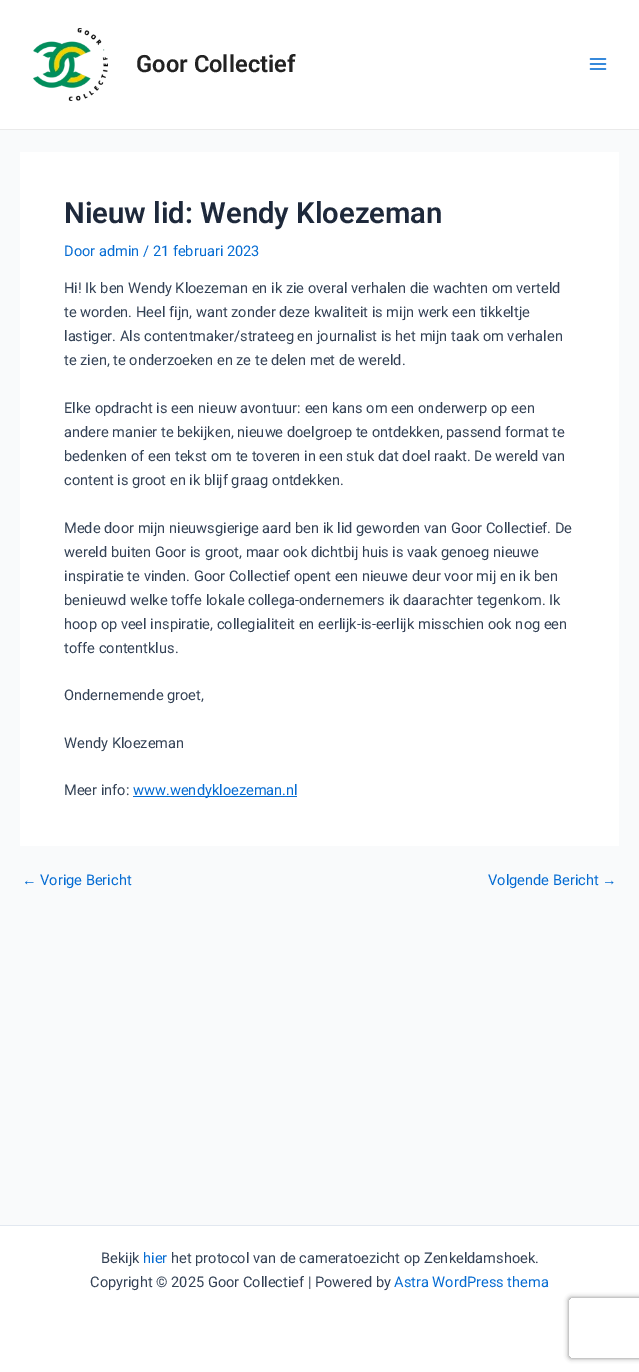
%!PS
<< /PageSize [639 1372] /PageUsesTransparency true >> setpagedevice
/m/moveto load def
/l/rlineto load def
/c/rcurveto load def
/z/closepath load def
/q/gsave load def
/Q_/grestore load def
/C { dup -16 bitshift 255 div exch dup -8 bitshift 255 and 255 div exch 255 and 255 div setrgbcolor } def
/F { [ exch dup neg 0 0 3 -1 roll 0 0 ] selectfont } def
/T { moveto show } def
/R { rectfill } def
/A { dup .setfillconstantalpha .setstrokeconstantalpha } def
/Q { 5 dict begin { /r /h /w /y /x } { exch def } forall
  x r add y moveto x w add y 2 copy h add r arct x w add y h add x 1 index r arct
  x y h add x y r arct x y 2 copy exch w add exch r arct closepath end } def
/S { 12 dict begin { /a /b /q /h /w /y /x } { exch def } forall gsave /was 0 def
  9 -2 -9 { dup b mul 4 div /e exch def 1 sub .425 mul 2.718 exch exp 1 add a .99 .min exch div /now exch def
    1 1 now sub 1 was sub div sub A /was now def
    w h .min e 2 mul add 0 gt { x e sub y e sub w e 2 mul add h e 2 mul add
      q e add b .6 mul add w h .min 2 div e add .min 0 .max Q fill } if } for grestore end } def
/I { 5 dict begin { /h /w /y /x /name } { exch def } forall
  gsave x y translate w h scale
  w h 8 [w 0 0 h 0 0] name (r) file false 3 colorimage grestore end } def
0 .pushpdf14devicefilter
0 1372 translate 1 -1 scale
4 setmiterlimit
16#F9FAFB C
0 0 639 1372 R
16#FFFFFF C
0 0 639 129 R
16#EAEAEA C
0 129 639 1 R
(1.rgb) 33 28 75 73 I
/Roboto-SemiBold 23.75 F
16#222222 C
(Goor Collectief) 136 72 T
(2.rgb) 589 58 18 12 I
16#FFFFFF C
20 152 599 694 R
/Roboto-SemiBold 29.25 F
16#1E293B C
(Nieuw lid: Wendy Kloezeman) 64 223 T
/Roboto-Regular 14.6 F
16#046BD2 C
(Door admin / 21 februari 2023) 64 256 T
16#334155 C
(Hi! Ik ben Wendy Kloezeman en ik zie overal verhalen die wachten om verteld) 64 293 T
(te worden. Heel fijn, want zonder deze kwaliteit is mijn werk een tikkeltje) 64 317 T
(lastiger. Als contentmaker/strateeg en journalist is het mijn taak om verhalen) 64 341 T
(te zien, te onderzoeken en ze te delen met de wereld.) 64 365 T
(Elke opdracht is een nieuw avontuur: een kans om een onderwerp op een) 64 413 T
(andere manier te bekijken, nieuwe doelgroep te ontdekken, passend format te) 64 437 T
(bedenken of een tekst om te toveren in een stuk dat doel raakt. De wereld van) 64 461 T
(content is groot en ik blijf graag ontdekken.) 64 485 T
(Mede door mijn nieuwsgierige aard ben ik lid geworden van Goor Collectief. De) 64 533 T
(wereld buiten Goor is groot, maar ook dichtbij huis is vaak genoeg nieuwe) 64 557 T
(inspiratie te vinden. Goor Collectief opent een nieuwe deur voor mij en ik ben) 64 581 T
(benieuwd welke toffe lokale collega-ondernemers ik daarachter tegenkom. Ik) 64 605 T
(hoop op veel inspiratie, collegialiteit en eerlijk-is-eerlijk misschien ook nog een) 64 629 T
(toffe contentklus.) 64 653 T
(Ondernemende groet,) 64 700 T
(Wendy Kloezeman) 64 748 T
(Meer info:) 64 795 T
16#046BD2 C
133 796 164 1 R
(www.wendykloezeman.nl) 133 795 T
/LiberationSans-Regular 14.6 F
(←) 22 885 T
/Roboto-Regular 14.6 F
(Vorige Bericht) 40 885 T
(Volgende Bericht) 488 885 T
/LiberationSans-Regular 14.6 F
(→) 602 885 T
16#FFFFFF C
0 1226 639 146 R
16#E2E8F0 C
0 1225 639 1 R
/Roboto-Regular 14.6 F
16#334155 C
(Bekijk) 101 1263 T
16#046BD2 C
(hier) 143 1263 T
16#334155 C
(het protocol van de cameratoezicht op Zenkeldamshoek.) 171 1263 T
(Copyright © 2025 Goor Collectief | Powered by) 90 1287 T
16#046BD2 C
(Astra WordPress thema) 394 1287 T
q
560 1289 m 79 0 l 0 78 l -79 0 l z 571 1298 m 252 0 l 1 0 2 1 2 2 c 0 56 l 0 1 -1 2 -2 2 c -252 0 l -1 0 -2 -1 -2 -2 c 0 -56 l 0 -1 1 -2 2 -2 c z eoclip newpath
16#808080 C
569 1298 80 60 2 2.5 1 S
Q_
.poppdf14devicefilter showpage
